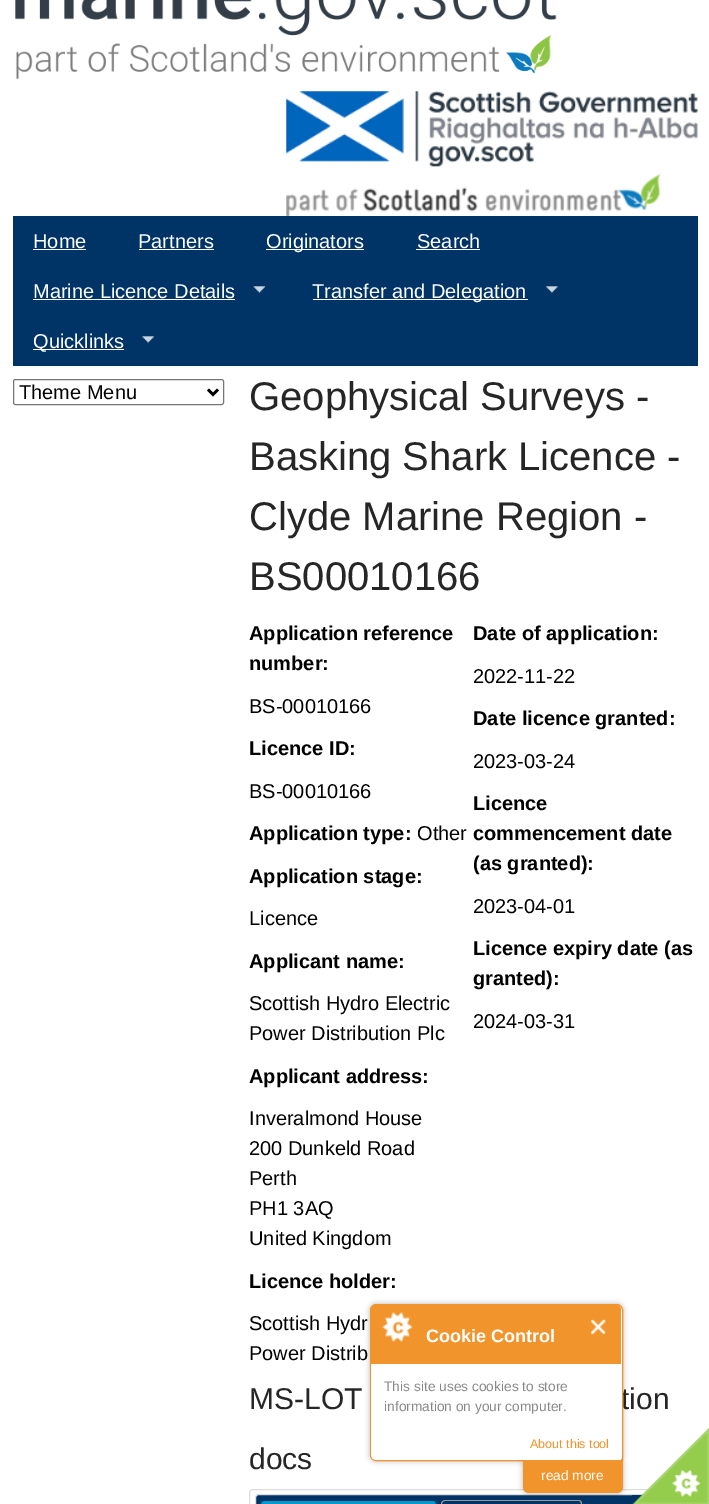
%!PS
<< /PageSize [709 1504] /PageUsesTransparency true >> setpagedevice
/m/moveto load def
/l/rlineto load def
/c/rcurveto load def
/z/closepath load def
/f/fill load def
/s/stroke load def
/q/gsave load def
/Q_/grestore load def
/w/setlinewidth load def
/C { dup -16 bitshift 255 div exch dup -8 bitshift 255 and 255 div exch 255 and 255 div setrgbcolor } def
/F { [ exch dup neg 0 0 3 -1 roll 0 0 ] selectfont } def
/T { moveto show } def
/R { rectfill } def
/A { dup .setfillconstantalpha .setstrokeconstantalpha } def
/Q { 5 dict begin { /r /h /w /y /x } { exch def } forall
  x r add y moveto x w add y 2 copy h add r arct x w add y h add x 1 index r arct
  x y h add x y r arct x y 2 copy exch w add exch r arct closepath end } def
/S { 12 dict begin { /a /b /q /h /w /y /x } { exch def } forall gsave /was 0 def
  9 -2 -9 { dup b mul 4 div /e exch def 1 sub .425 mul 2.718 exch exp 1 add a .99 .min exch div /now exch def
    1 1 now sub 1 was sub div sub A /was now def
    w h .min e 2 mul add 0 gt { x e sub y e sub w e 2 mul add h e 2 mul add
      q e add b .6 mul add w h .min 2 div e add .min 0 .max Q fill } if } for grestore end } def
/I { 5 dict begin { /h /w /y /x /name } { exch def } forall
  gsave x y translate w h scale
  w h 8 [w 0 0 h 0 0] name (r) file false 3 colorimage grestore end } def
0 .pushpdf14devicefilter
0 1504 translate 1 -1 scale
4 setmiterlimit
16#FFFFFF C
0 0 709 1504 R
(1.rgb) 15 0 542 80 I
(2.rgb) 286 91 412 125 I
16#003366 C
13 216 685 150 R
/LiberationSans-Regular 20 F
16#FFFFFF C
(Home) 33 248 T
33 249 53 1 R
(Partners) 138 248 T
139 249 75 1 R
266 249 98 1 R
(Originators) 266 248 T
(Search) 417 248 T
416 249 64 1 R
(Marine Licence Details) 33 298 T
33 299 202 1 R
(3.rgb) 253 286 12 7 I
313 299 215 1 R
(Transfer and Delegation) 312 298 T
(4.rgb) 546 286 12 7 I
33 349 91 1 R
(Quicklinks) 33 348 T
(5.rgb) 142 336 12 7 I
16#767676 C
13.5 379.5 210 25 2 Q s
16#000000 C
2.5 w
208 389.5 m 5 5 l 5 -5 l s
(Theme Menu) 19 399 T
/LiberationSans-Regular 40 F
16#262626 C
(Geophysical Surveys -) 249 410 T
(Basking Shark Licence -) 249 470 T
(Clyde Marine Region -) 249 530 T
(BS00010166) 249 590 T
/LiberationSans-Bold 20 F
16#000000 C
(Application reference) 249 640 T
(number:) 249 670 T
/LiberationSans-Regular 20 F
(BS-00010166) 249 713 T
/LiberationSans-Bold 20 F
(Licence ID:) 249 755 T
/LiberationSans-Regular 20 F
(BS-00010166) 249 798 T
/LiberationSans-Bold 20 F
(Application type:) 249 840 T
/LiberationSans-Regular 20 F
(Other) 417 840 T
/LiberationSans-Bold 20 F
(Application stage:) 249 883 T
/LiberationSans-Regular 20 F
(Licence) 249 925 T
/LiberationSans-Bold 20 F
(Applicant name:) 249 968 T
/LiberationSans-Regular 20 F
(Scottish Hydro Electric) 249 1010 T
(Power Distribution Plc) 249 1040 T
/LiberationSans-Bold 20 F
(Applicant address:) 249 1083 T
/LiberationSans-Regular 20 F
(Inveralmond House) 249 1125 T
(200 Dunkeld Road) 249 1155 T
(Perth) 249 1185 T
(PH1 3AQ) 249 1215 T
(United Kingdom) 249 1245 T
/LiberationSans-Bold 20 F
(Licence holder:) 249 1288 T
/LiberationSans-Regular 20 F
(Scottish Hydr) 249 1330 T
(Power Distrib) 249 1360 T
/LiberationSans-Bold 20 F
(Date of application:) 473 640 T
/LiberationSans-Regular 20 F
(2022-11-22) 473 683 T
/LiberationSans-Bold 20 F
(Date licence granted:) 473 725 T
/LiberationSans-Regular 20 F
(2023-03-24) 473 768 T
/LiberationSans-Bold 20 F
(Licence) 473 810 T
(commencement date) 473 840 T
(\(as granted\):) 473 870 T
/LiberationSans-Regular 20 F
(2023-04-01) 473 913 T
/LiberationSans-Bold 20 F
(Licence expiry date \(as) 473 955 T
(granted\):) 473 985 T
/LiberationSans-Regular 20 F
(2024-03-31) 473 1028 T
/LiberationSans-Regular 30 F
16#262626 C
(MS-LOT) 249 1409 T
(tion) 621 1409 T
(docs) 249 1469 T
16#DDDDDD C
1 w
249.5 1489.5 448 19 3.5 Q s
16#003366 C
255.5 1494.5 437 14 3.5 Q q f Q_
16#DDDDDD C
s
16#0099CC C
264 1500 m 170 0 l 2 0 4 2 4 4 c 0 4 l -178 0 l 0 -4 l 0 -2 2 -4 4 -4 c z f
16#003366 C
264 1500 m 170 0 l 2 0 4 2 4 4 c 0 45 l -178 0 l 0 -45 l 0 -2 2 -4 4 -4 c z 264 1501 m 170 0 l 1 0 2 1 2 3 c 0 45 l -175 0 l 0 -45 l 0 -2 1 -3 3 -3 c z eofill
16#999999 C
445 1500 m 134 0 l 2 0 3 2 3 4 c 0 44 l -141 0 l 0 -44 l 0 -2 2 -4 4 -4 c z 445 1501 m 134 0 l 1 0 2 1 2 3 c 0 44 l -139 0 l 0 -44 l 0 -2 2 -3 3 -3 c z eofill
(8.rgb) 632 1427 77 77 I
16#000000 C
370 1304 253 157 6 3 .3 S
16#FFFFFF C
376 1304.5 m 241 0 l 3 0 5.5 2.5 5.5 5.5 c 0 150.5 l -246.5 0 l -3 0 -5.5 -2.5 -5.5 -5.5 c 0 -145 l 0 -3 2.5 -5.5 5.5 -5.5 c z q f Q_
16#F0942B C
s
16#000000 C
523 1459 100 34 6 3 .3 S
16#F0942B C
523 1459 m 100 0 l 0 28 l 0 3.5 -2.5 6 -6 6 c -88 0 l -3.5 0 -6 -2.5 -6 -6 c z f
16#FFFFFF C
377 1305 m 238 0 l 3.5 0 6 2.5 6 6 c 0 149 l -244 0 l -3.5 0 -6 -2.5 -6 -6 c 0 -143 l 0 -3.5 2.5 -6 6 -6 c z f
16#F0942B C
375 1305 m 242 0 l 2 0 4 2 4 4 c 0 55 l -250 0 l 0 -55 l 0 -2 2 -4 4 -4 c z f
(6.rgb) 382 1312 31 52 I
/LiberationSans-Bold 18 F
16#FFFFFF C
(Cookie Control) 426 1342 T
(7.rgb) 591 1319 16 16 I
/LiberationSans-Regular 13.75 F
16#888888 C
(This site uses cookies to store) 384 1391 T
(information on your computer.) 384 1411 T
/LiberationSans-Regular 12.5 F
16#F0942B C
(About this tool) 530 1448 T
/LiberationSans-Regular 13.75 F
16#FFFFFF C
(read more) 541 1480 T
.poppdf14devicefilter showpage
